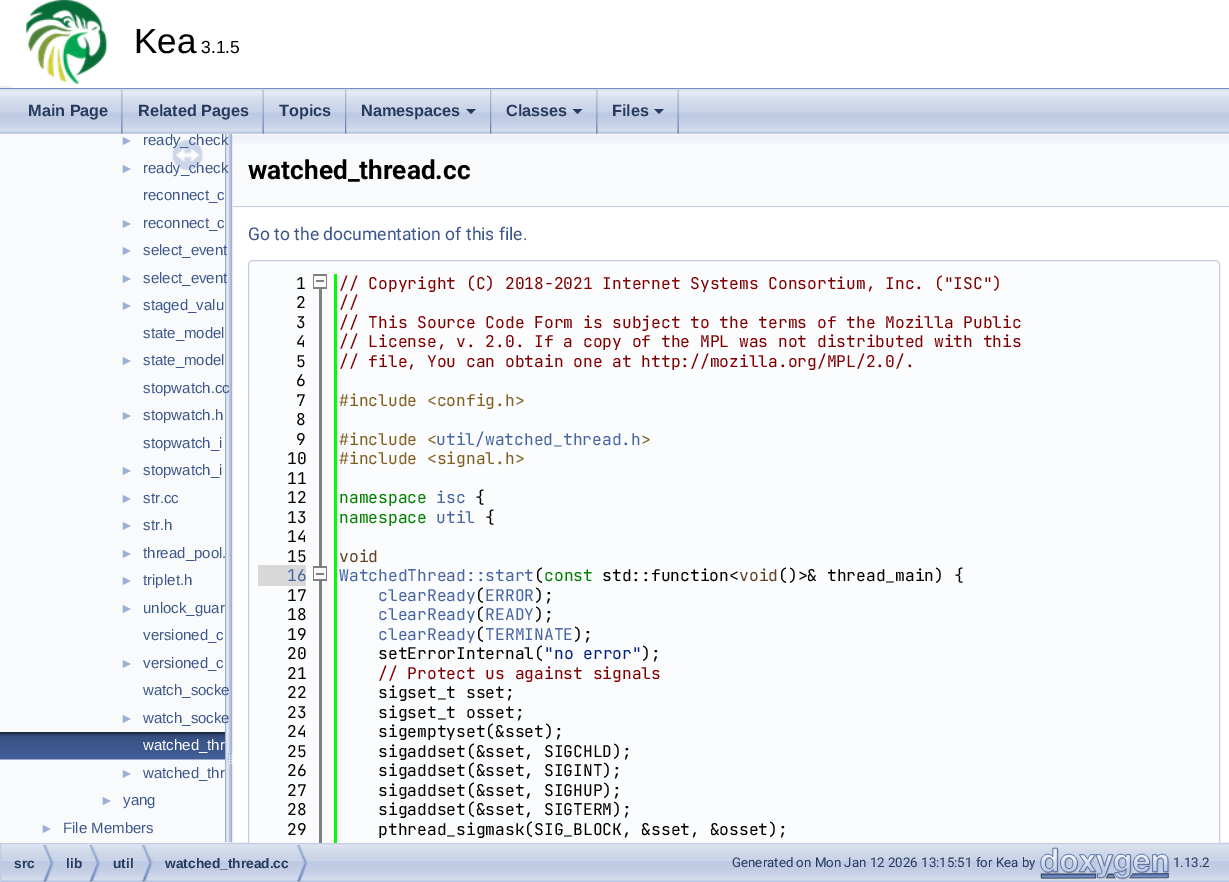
%!PS
<< /PageSize [1229 882] >> setpagedevice
/m/moveto load def
/l/rlineto load def
/c/rcurveto load def
/z/closepath load def
/f/fill load def
/s/stroke load def
/q/gsave load def
/Q_/grestore load def
/C { dup -16 bitshift 255 div exch dup -8 bitshift 255 and 255 div exch 255 and 255 div setrgbcolor } def
/F { [ exch dup neg 0 0 3 -1 roll 0 0 ] selectfont } def
/T { moveto show } def
/R { rectfill } def
/Q { 5 dict begin { /r /h /w /y /x } { exch def } forall
  x r add y moveto x w add y 2 copy h add r arct x w add y h add x 1 index r arct
  x y h add x y r arct x y 2 copy exch w add exch r arct closepath end } def
/I { 5 dict begin { /h /w /y /x /name } { exch def } forall
  gsave x y translate w h scale
  w h 8 [w 0 0 h 0 0] name (r) file false 3 colorimage grestore end } def
0 882 translate 1 -1 scale
4 setmiterlimit
16#FFFFFF C
0 0 1229 882 R
16#5373B4 C
0 88 1229 1 R
(1.rgb) 0 0 108 88 I
/LiberationSans-Regular 35 F
16#000000 C
(Kea) 134 53 T
/LiberationSans-Regular 17.5 F
(3.1.5) 201 53 T
16#F9FAFC C
233 134 996 74 R
(9.rgb) 232 135 997 9 I
(10.rgb) 1 842 1228 40 I
(8.rgb) 225 133 8 710 I
(2.rgb) 0 88 1229 46 I
(3.rgb) 121 88 2 46 I
/LiberationSans-Bold 16.25 F
16#283A5D C
(Main Page) 28 116 T
(4.rgb) 262 88 2 46 I
(Related Pages) 138 116 T
(5.rgb) 345 88 2 46 I
(Topics) 279 116 T
(5.rgb) 490 88 2 46 I
(Namespaces) 361 116 T
466 109 m 10 0 l -5 5 l z f
(3.rgb) 596 88 2 46 I
(Classes) 506 116 T
572.5 109 m 10 0 l -5 5 l z f
(4.rgb) 677 88 2 46 I
(Files) 612 116 T
654 109 m 10 0 l -5 5 l z f
16#F9FAFC C
0 134 225 709 R
/LiberationSans-Regular 14 F
16#9CAFD4 C
(►) 120 145 T
/LiberationSans-Regular 15 F
16#3D578C C
(ready_check) 143 145 T
/LiberationSans-Regular 14 F
16#9CAFD4 C
(►) 120 173 T
/LiberationSans-Regular 15 F
16#3D578C C
(ready_check) 143 173 T
(reconnect_c) 143 200 T
/LiberationSans-Regular 14 F
16#9CAFD4 C
(►) 120 228 T
/LiberationSans-Regular 15 F
16#3D578C C
(reconnect_c) 143 228 T
/LiberationSans-Regular 14 F
16#9CAFD4 C
(►) 120 255 T
/LiberationSans-Regular 15 F
16#3D578C C
(select_event) 143 255 T
/LiberationSans-Regular 14 F
16#9CAFD4 C
(►) 120 283 T
/LiberationSans-Regular 15 F
16#3D578C C
(select_event) 143 283 T
/LiberationSans-Regular 14 F
16#9CAFD4 C
(►) 120 310 T
/LiberationSans-Regular 15 F
16#3D578C C
(staged_valu) 143 310 T
(state_model) 143 338 T
/LiberationSans-Regular 14 F
16#9CAFD4 C
(►) 120 365 T
/LiberationSans-Regular 15 F
16#3D578C C
(state_model) 143 365 T
(stopwatch.cc) 143 393 T
/LiberationSans-Regular 14 F
16#9CAFD4 C
(►) 120 420 T
/LiberationSans-Regular 15 F
16#3D578C C
(stopwatch.h) 143 420 T
(stopwatch_i) 143 448 T
/LiberationSans-Regular 14 F
16#9CAFD4 C
(►) 120 475 T
/LiberationSans-Regular 15 F
16#3D578C C
(stopwatch_i) 143 475 T
/LiberationSans-Regular 14 F
16#9CAFD4 C
(►) 120 503 T
/LiberationSans-Regular 15 F
16#3D578C C
(str.cc) 143 503 T
/LiberationSans-Regular 14 F
16#9CAFD4 C
(►) 120 530 T
/LiberationSans-Regular 15 F
16#3D578C C
(str.h) 143 530 T
/LiberationSans-Regular 14 F
16#9CAFD4 C
(►) 120 558 T
/LiberationSans-Regular 15 F
16#3D578C C
(thread_pool.) 143 558 T
/LiberationSans-Regular 14 F
16#9CAFD4 C
(►) 120 585 T
/LiberationSans-Regular 15 F
16#3D578C C
(triplet.h) 143 585 T
/LiberationSans-Regular 14 F
16#9CAFD4 C
(►) 120 613 T
/LiberationSans-Regular 15 F
16#3D578C C
(unlock_guar) 143 613 T
(versioned_c) 143 640 T
/LiberationSans-Regular 14 F
16#9CAFD4 C
(►) 120 668 T
/LiberationSans-Regular 15 F
16#3D578C C
(versioned_c) 143 668 T
(watch_socke) 143 695 T
/LiberationSans-Regular 14 F
16#9CAFD4 C
(►) 120 723 T
/LiberationSans-Regular 15 F
16#3D578C C
(watch_socke) 143 723 T
(6.rgb) 0 732 225 28 I
16#FFFFFF C
(watched_thr) 143 750 T
/LiberationSans-Regular 14 F
16#9CAFD4 C
(►) 120 778 T
/LiberationSans-Regular 15 F
16#3D578C C
(watched_thr) 143 778 T
/LiberationSans-Regular 14 F
16#9CAFD4 C
(►) 100 805 T
/LiberationSans-Regular 15 F
16#3D578C C
(yang) 123 805 T
/LiberationSans-Regular 14 F
16#9CAFD4 C
(►) 40 833 T
/LiberationSans-Regular 15 F
16#3D578C C
(File Members) 63 833 T
(7.rgb) 172 140 31 30 I
16#C4CFE5 C
233 206 996 1 R
/Roboto-Bold 26.25 F
16#000000 C
(watched_thread.cc) 248 179 T
/Roboto-Regular 17.5 F
16#3D578C C
(Go to the documentation of this file.) 248 240 T
16#FBFCFD C
253 260 m 962 0 l 3 0 5 2 5 5 c 0 578 l -972 0 l 0 -578 l 0 -3 2 -5 5 -5 c z f
16#C2CDE4 C
.5 843.5 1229 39 rectstroke
(13.rgb) 297 845 11 37 I
/LiberationSans-Bold 13.75 F
16#283A5D C
(watched_thread.cc) 165 868 T
(14.rgb) 1040 847 130 33 I
q
233 134 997 709 rectclip
16#C4CFE5 C
248.5 260.5 971 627 4.5 Q s
Q_
16#808080 C
319 289 3 277 R
16#00FF00 C
334 274 3 569 R
/JetBrainsMono-Regular 16.25 F
16#000000 C
(1) 296 289 T
16#808080 C
313 274 14 15 R
16#FCFCFC C
314 276 12 11 R
16#808080 C
316 280 8 2 R
16#800000 C
(// Copyright \(C\) 2018-2021 Internet Systems Consortium, Inc. \("ISC"\)) 339 289 T
16#000000 C
(2) 296 308 T
16#800000 C
(//) 339 308 T
16#000000 C
(3) 296 328 T
16#800000 C
(// This Source Code Form is subject to the terms of the Mozilla Public) 339 328 T
16#000000 C
(4) 296 347 T
16#800000 C
(// License, v. 2.0. If a copy of the MPL was not distributed with this) 339 347 T
16#000000 C
(5) 296 367 T
16#800000 C
(// file, You can obtain one at http://mozilla.org/MPL/2.0/.) 339 367 T
16#000000 C
(6) 296 386 T
(7) 296 406 T
16#806020 C
(#include <config.h>) 339 406 T
16#000000 C
(8) 296 425 T
(9) 296 445 T
16#806020 C
(#include <) 339 445 T
16#4665A2 C
(util/watched_thread.h) 436 445 T
16#806020 C
(>) 641 445 T
16#000000 C
(10) 287 464 T
16#806020 C
(#include <signal.h>) 339 464 T
16#000000 C
(11) 287 484 T
(12) 287 503 T
16#008000 C
(namespace) 339 503 T
16#4665A2 C
(isc) 436 503 T
16#000000 C
({) 475 503 T
(13) 287 523 T
16#008000 C
(namespace) 339 523 T
16#4665A2 C
(util) 436 523 T
16#000000 C
({) 485 523 T
(14) 287 542 T
(15) 287 562 T
16#604020 C
(void) 339 562 T
16#808080 C
319 581 3 262 R
16#D8D8D8 C
258 565 48 21 R
16#4665A2 C
(16) 287 581 T
16#808080 C
313 566 14 15 R
16#FCFCFC C
314 568 12 11 R
16#808080 C
316 573 8 2 R
16#4665A2 C
(WatchedThread::start) 339 581 T
16#000000 C
(\() 534 581 T
16#008000 C
(const) 544 581 T
16#000000 C
(std::function<) 602 581 T
16#604020 C
(void) 739 581 T
16#000000 C
(\(\)>& thread_main\) {) 778 581 T
(17) 287 601 T
16#4665A2 C
(clearReady ERROR) 378 601 T
16#000000 C
(\() 475 601 T
(\);) 534 601 T
(18) 287 620 T
16#4665A2 C
(clearReady READY) 378 620 T
16#000000 C
(\() 475 620 T
(\);) 534 620 T
(19) 287 640 T
16#4665A2 C
(clearReady TERMINATE) 378 640 T
16#000000 C
(\() 475 640 T
(\);) 573 640 T
(20) 287 659 T
(setErrorInternal\() 378 659 T
16#002080 C
("no error") 544 659 T
16#000000 C
(\);) 641 659 T
(21) 287 679 T
16#800000 C
(// Protect us against signals) 378 679 T
16#000000 C
(22) 287 698 T
(sigset_t sset;) 378 698 T
(23) 287 718 T
(sigset_t osset;) 378 718 T
(24) 287 737 T
(sigemptyset\(&sset\);) 378 737 T
(25) 287 757 T
(sigaddset\(&sset, SIGCHLD\);) 378 757 T
(26) 287 776 T
(sigaddset\(&sset, SIGINT\);) 378 776 T
(27) 287 796 T
(sigaddset\(&sset, SIGHUP\);) 378 796 T
(28) 287 815 T
(sigaddset\(&sset, SIGTERM\);) 378 815 T
(29) 287 835 T
(pthread_sigmask\(SIG_BLOCK, &sset, &osset\);) 378 835 T
(11.rgb) 43 845 11 37 I
/LiberationSans-Bold 13.75 F
16#283A5D C
(src) 14 868 T
(12.rgb) 90 845 10 37 I
(lib) 66 868 T
(13.rgb) 142 845 11 37 I
(util) 113 868 T
/Roboto-Regular 13.3 F
(Generated on Mon Jan 12 2026 13:15:51 for Kea by) 732 867 T
(1.13.2) 1173 867 T
showpage
